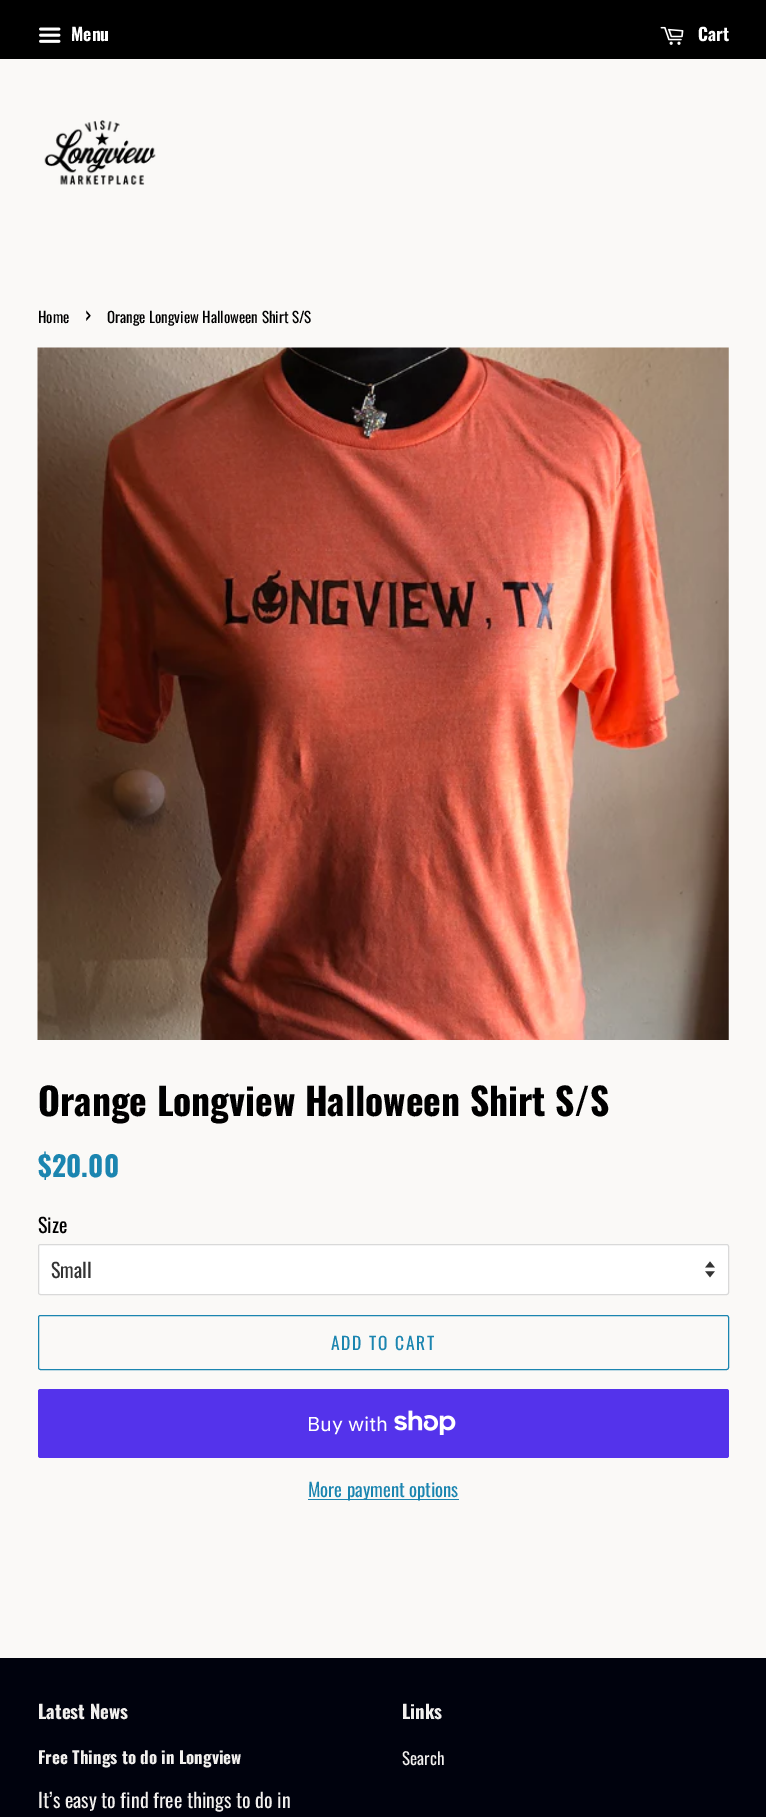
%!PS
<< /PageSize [766 1817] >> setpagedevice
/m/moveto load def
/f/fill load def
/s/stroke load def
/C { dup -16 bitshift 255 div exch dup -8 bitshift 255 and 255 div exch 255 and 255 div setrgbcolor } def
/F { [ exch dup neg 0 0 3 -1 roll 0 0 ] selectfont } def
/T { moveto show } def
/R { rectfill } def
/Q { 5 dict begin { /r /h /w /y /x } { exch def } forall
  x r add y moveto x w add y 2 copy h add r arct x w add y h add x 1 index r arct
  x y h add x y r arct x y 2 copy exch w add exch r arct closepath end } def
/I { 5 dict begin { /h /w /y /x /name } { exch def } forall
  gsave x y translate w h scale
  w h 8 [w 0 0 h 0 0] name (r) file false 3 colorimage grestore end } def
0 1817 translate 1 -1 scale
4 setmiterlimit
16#FAF9F7 C
0 0 766 1817 R
16#000000 C
0 0 766 59 R
(1.rgb) 39 27 22 16 I
/Oswald-Bold 17.5 F
16#FFFFFF C
(Menu) 71 41 T
(2.rgb) 660 26 24 19 I
(Cart) 698 41 T
(3.rgb) 44 120 112 65 I
/Oswald-Regular 15 F
16#000000 C
(Home) 38 323 T
/Oswald-Regular 21 F
(›) 85 323 T
/Oswald-Regular 15 F
(Orange Longview Halloween Shirt S/S) 107 323 T
(4.rgb) 37 347 692 693 I
/Oswald-Bold 37.5 F
(Orange Longview Halloween Shirt S/S) 38 1116 T
/Oswald-Bold 28 F
16#1B85B0 C
($20.00) 38 1177 T
/Oswald-Regular 20 F
16#000000 C
(Size) 38 1233 T
16#FFFFFF C
38 1244 691 51 2.5 Q f
(5.rgb) 705 1261 10 17 I
16#D9D9D9 C
38.5 1244.5 690 50 2 Q s
16#333333 C
(Small) 51 1278 T
16#1B85B0 C
38.5 1315.5 690 54 2 Q s
/Oswald-Regular 17.5 F
331 1350 m 1.75 0 (ADD TO CART) ashow
16#5433EB C
38 1389 691 69 2.5 Q f
/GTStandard-Regular 20 F
16#FFFFFF C
(Buy with) 307 1431 T
(6.rgb) 394 1410 62 25 I
16#1B85B0 C
308 1499 151 1 R
/Oswald-Regular 18.75 F
(More payment options) 308 1497 T
16#00020D C
0 1658 766 159 R
/Oswald-Bold 18.75 F
16#F2F0EE C
(Latest News) 38 1719 T
/Oswald-Bold 17 F
(Free Things to do in Longview) 38 1764 T
/Oswald-Regular 20 F
(It’s easy to find free things to do in) 38 1808 T
/Oswald-Bold 18.75 F
(Links) 402 1719 T
/Oswald-Regular 17 F
(Search) 402 1765 T
showpage
